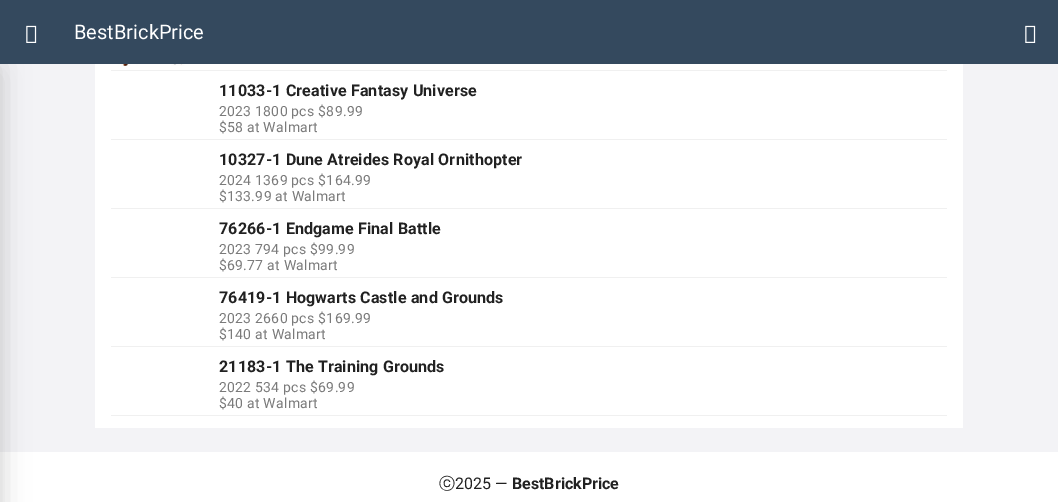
%!PS
<< /PageSize [1058 502] /PageUsesTransparency true >> setpagedevice
/m/moveto load def
/C { dup -16 bitshift 255 div exch dup -8 bitshift 255 and 255 div exch 255 and 255 div setrgbcolor } def
/F { [ exch dup neg 0 0 3 -1 roll 0 0 ] selectfont } def
/T { moveto show } def
/R { rectfill } def
/A { dup .setfillconstantalpha .setstrokeconstantalpha } def
/Q { 5 dict begin { /r /h /w /y /x } { exch def } forall
  x r add y moveto x w add y 2 copy h add r arct x w add y h add x 1 index r arct
  x y h add x y r arct x y 2 copy exch w add exch r arct closepath end } def
/S { 12 dict begin { /a /b /q /h /w /y /x } { exch def } forall gsave /was 0 def
  9 -2 -9 { dup b mul 4 div /e exch def 1 sub .425 mul 2.718 exch exp 1 add a .99 .min exch div /now exch def
    1 1 now sub 1 was sub div sub A /was now def
    w h .min e 2 mul add 0 gt { x e sub y e sub w e 2 mul add h e 2 mul add
      q e add b .6 mul add w h .min 2 div e add .min 0 .max Q fill } if } for grestore end } def
/I { 5 dict begin { /h /w /y /x /name } { exch def } forall
  gsave x y translate w h scale
  w h 8 [w 0 0 h 0 0] name (r) file false 3 colorimage grestore end } def
0 .pushpdf14devicefilter
0 502 translate 1 -1 scale
4 setmiterlimit
16#F3F3F6 C
0 0 1058 502 R
16#FFFFFF C
0 452 1058 50 R
16#000000 C
-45 65 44 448 0 15 .12 S
-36 78 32 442 0 12 .14 S
16#34495E C
0 0 1058 64 R
(1.rgb) 26 25 11 18 I
/Roboto-Regular 20 F
16#FFFFFF C
(BestBrickPrice) 74 39 T
(1.rgb) 1025 25 11 18 I
95 64 868 364 R
(2.rgb) 111 64 100 2 I
16#F0F0F0 C
111 70 836 1 R
/Roboto-Bold 16 F
16#212121 C
219 96 m .15 0 (11033-1 Creative Fantasy Universe) ashow
/Roboto-Regular 14 F
16#7A7A7A C
219 116 m .25 0 (2023 1800 pcs $89.99) ashow
219 132 m .25 0 ($58 at Walmart) ashow
16#F0F0F0 C
111 139 836 1 R
/Roboto-Bold 16 F
16#212121 C
219 165 m .15 0 (10327-1 Dune Atreides Royal Ornithopter) ashow
/Roboto-Regular 14 F
16#7A7A7A C
219 185 m .25 0 (2024 1369 pcs $164.99) ashow
219 201 m .25 0 ($133.99 at Walmart) ashow
16#F0F0F0 C
111 208 836 1 R
/Roboto-Bold 16 F
16#212121 C
219 234 m .15 0 (76266-1 Endgame Final Battle) ashow
/Roboto-Regular 14 F
16#7A7A7A C
219 254 m .25 0 (2023 794 pcs $99.99) ashow
219 270 m .25 0 ($69.77 at Walmart) ashow
16#F0F0F0 C
111 277 836 1 R
/Roboto-Bold 16 F
16#212121 C
219 303 m .15 0 (76419-1 Hogwarts Castle and Grounds) ashow
/Roboto-Regular 14 F
16#7A7A7A C
219 323 m .25 0 (2023 2660 pcs $169.99) ashow
219 339 m .25 0 ($140 at Walmart) ashow
16#F0F0F0 C
111 346 836 1 R
/Roboto-Bold 16 F
16#212121 C
219 372 m .15 0 (21183-1 The Training Grounds) ashow
/Roboto-Regular 14 F
16#7A7A7A C
219 392 m .25 0 (2022 534 pcs $69.99) ashow
219 408 m .25 0 ($40 at Walmart) ashow
16#F0F0F0 C
111 415 836 1 R
/WenQuanYiZenHei-Medium 16 F
16#212121 C
(ⓒ) 439 489 T
/Roboto-Regular 16 F
(2025 —) 455 489 T
/Roboto-Bold 16 F
(BestBrickPrice) 512 489 T
.poppdf14devicefilter showpage
